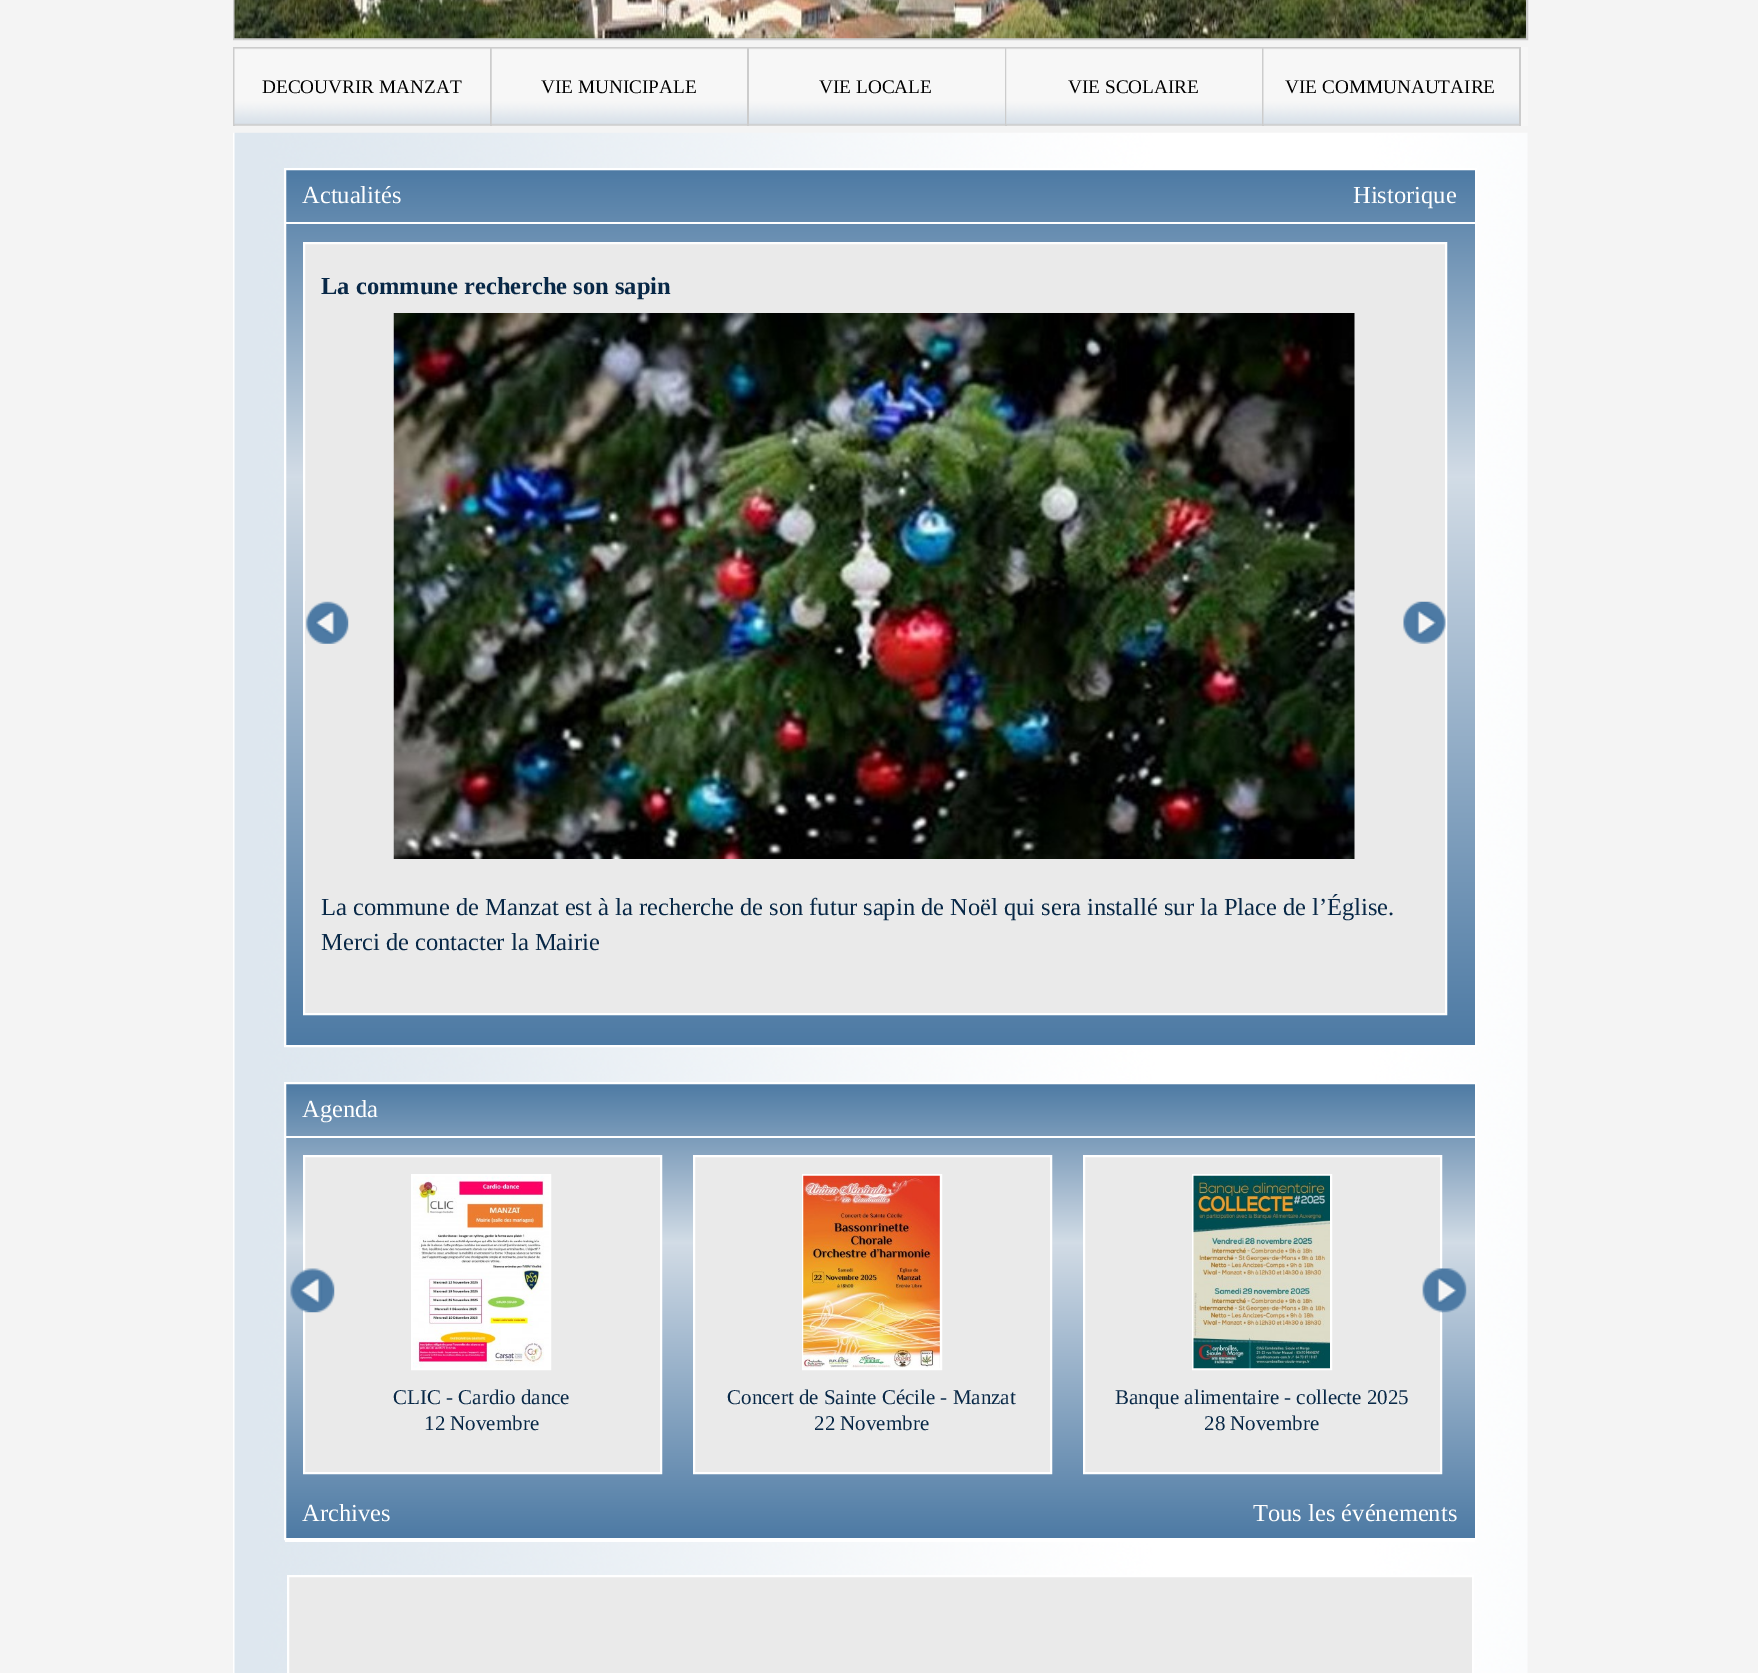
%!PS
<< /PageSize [1758 1673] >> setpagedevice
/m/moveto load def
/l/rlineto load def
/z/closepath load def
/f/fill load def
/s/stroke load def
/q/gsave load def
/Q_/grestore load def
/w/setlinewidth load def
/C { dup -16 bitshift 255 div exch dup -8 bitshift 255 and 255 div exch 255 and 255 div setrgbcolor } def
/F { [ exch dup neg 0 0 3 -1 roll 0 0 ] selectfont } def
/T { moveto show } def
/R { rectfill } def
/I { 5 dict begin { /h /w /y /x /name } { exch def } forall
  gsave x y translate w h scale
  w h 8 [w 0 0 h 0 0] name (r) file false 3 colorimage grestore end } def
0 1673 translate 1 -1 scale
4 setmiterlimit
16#F4F4F4 C
0 0 1758 1673 R
16#CCCCCC C
2 w
234 -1 1293 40 rectstroke
(1.rgb) 234 0 1292 39 I
16#F7F7F7 C
235 47 1293 79 R
16#CCCCCC C
233 47 2 79 R
(2.rgb) 234 47 256 79 I
490 47 2 79 R
/LiberationSerif-Regular 19.25 F
16#000000 C
(DECOUVRIR MANZAT) 262 93 T
(3.rgb) 491 47 256 79 I
16#CCCCCC C
747 47 2 79 R
16#000000 C
(VIE MUNICIPALE) 541 93 T
(4.rgb) 749 47 256 79 I
16#CCCCCC C
1005 47 2 79 R
16#000000 C
(VIE LOCALE) 819 93 T
(5.rgb) 1006 47 256 79 I
16#CCCCCC C
1262 47 2 79 R
16#000000 C
(VIE SCOLAIRE) 1068 93 T
(2.rgb) 1263 47 256 79 I
16#CCCCCC C
1519 47 2 79 R
16#000000 C
(VIE COMMUNAUTAIRE) 1285 93 T
(6.rgb) 233 132 1295 1541 I
q 286 170 m 1189 0 l 0 875 l -1189 0 l z clip newpath
<< /ShadingType 2 /ColorSpace /DeviceRGB /Coords [880 170 880 1045] /Extend [true true] /Function << /FunctionType 3 /Domain [0 1] /Functions [<< /FunctionType 2 /Domain [0 1] /C0 [.302 .478 .643] /C1 [.824 .863 .902] /N 1 >> << /FunctionType 2 /Domain [0 1] /C0 [.824 .863 .902] /C1 [.302 .478 .643] /N 1 >>] /Bounds [.35] /Encode [0 1 0 1] >> >> shfill Q_
16#FFFFFF C
285 169 1191 877 rectstroke
285 222 1190 2 R
/LiberationSerif-Regular 24.5 F
(Actualités) 302 203 T
(Historique) 1353 203 T
16#EAEAEA C
304 243 m 1142 0 l 0 771 l -1142 0 l z q f Q_
16#FFFFFF C
s
/LiberationSerif-Bold 24.5 F
16#082847 C
(La commune recherche son sapin) 321 294 T
(7.rgb) 393 313 962 546 I
/LiberationSerif-Regular 24.5 F
(La commune de Manzat est à la recherche de son futur sapin de Noël qui sera installé sur la Place de l’Église.) 321 915 T
(Merci de contacter la Mairie) 321 950 T
(8.rgb) 305 601 44 43 I
(9.rgb) 1403 601 43 43 I
q 286 1084 m 1189 0 l 0 454 l -1189 0 l z clip newpath
<< /ShadingType 2 /ColorSpace /DeviceRGB /Coords [880 1083 880 1538] /Extend [true true] /Function << /FunctionType 3 /Domain [0 1] /Functions [<< /FunctionType 2 /Domain [0 1] /C0 [.302 .478 .643] /C1 [.824 .863 .902] /N 1 >> << /FunctionType 2 /Domain [0 1] /C0 [.824 .863 .902] /C1 [.302 .478 .643] /N 1 >>] /Bounds [.35] /Encode [0 1 0 1] >> >> shfill Q_
16#FFFFFF C
285 1083 1191 456 rectstroke
285 1136 1190 2 R
(Agenda) 302 1117 T
16#EAEAEA C
304 1156 m 357 0 l 0 317 l -357 0 l z q f Q_
16#FFFFFF C
s
(10.rgb) 290 1268 45 45 I
16#EAEAEA C
1084 1156 m 357 0 l 0 317 l -357 0 l z q f Q_
16#FFFFFF C
s
(11.rgb) 1422 1268 45 45 I
412 1175 138 194 rectstroke
(12.rgb) 413 1175 136 193 I
/LiberationSerif-Regular 21 F
16#082847 C
(CLIC - Cardio dance) 393 1404 T
(12 Novembre) 424 1430 T
16#EAEAEA C
694 1156 m 357 0 l 0 317 l -357 0 l z q f Q_
16#FFFFFF C
s
803 1175 138 194 rectstroke
(13.rgb) 803 1175 137 193 I
16#082847 C
(Concert de Sainte Cécile - Manzat) 727 1404 T
(22 Novembre) 814 1430 T
16#FFFFFF C
1193 1175 138 194 rectstroke
(14.rgb) 1193 1175 137 194 I
16#082847 C
(Banque alimentaire - collecte 2025) 1115 1404 T
(28 Novembre) 1204 1430 T
16#FFFFFF C
285 1540 1190 2 R
/LiberationSerif-Regular 24.5 F
(Archives) 302 1521 T
(Tous les événements) 1253 1521 T
16#EAEAEA C
288 1576 m 1185 0 l 0 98 l -1185 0 l z q f Q_
16#FFFFFF C
s
showpage
